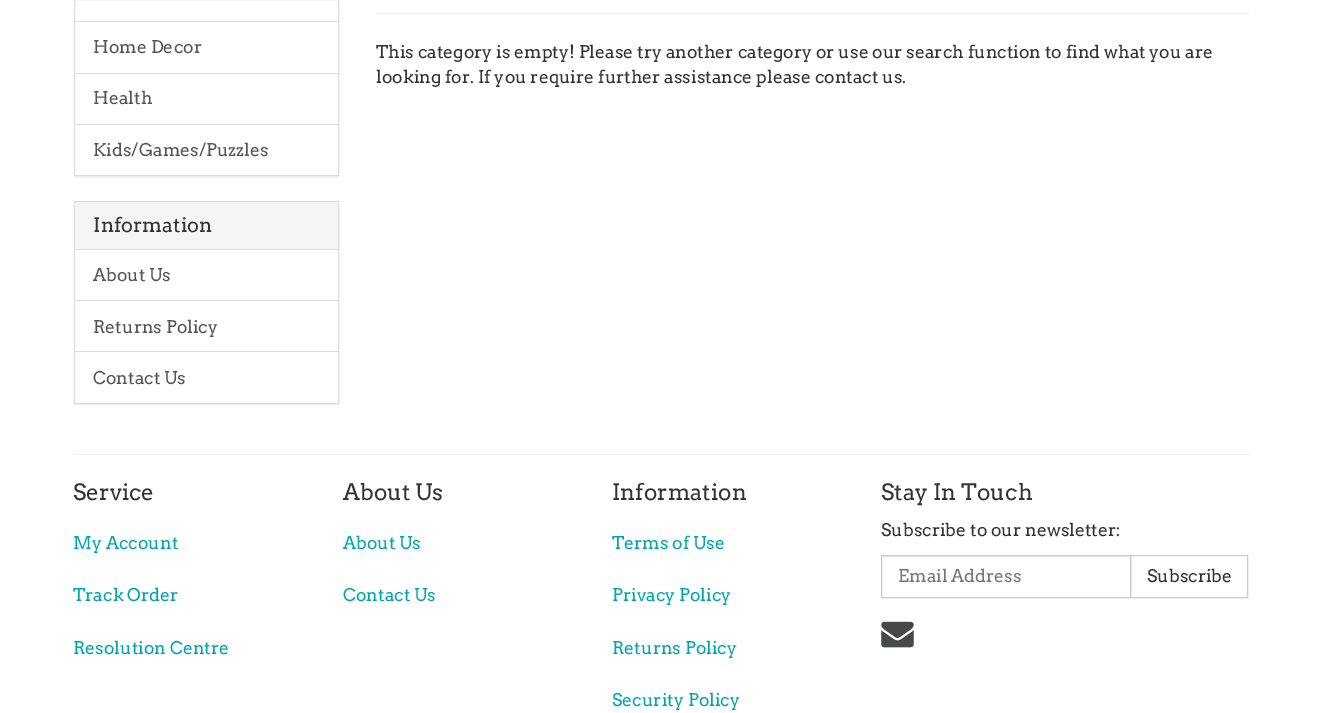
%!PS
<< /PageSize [1321 713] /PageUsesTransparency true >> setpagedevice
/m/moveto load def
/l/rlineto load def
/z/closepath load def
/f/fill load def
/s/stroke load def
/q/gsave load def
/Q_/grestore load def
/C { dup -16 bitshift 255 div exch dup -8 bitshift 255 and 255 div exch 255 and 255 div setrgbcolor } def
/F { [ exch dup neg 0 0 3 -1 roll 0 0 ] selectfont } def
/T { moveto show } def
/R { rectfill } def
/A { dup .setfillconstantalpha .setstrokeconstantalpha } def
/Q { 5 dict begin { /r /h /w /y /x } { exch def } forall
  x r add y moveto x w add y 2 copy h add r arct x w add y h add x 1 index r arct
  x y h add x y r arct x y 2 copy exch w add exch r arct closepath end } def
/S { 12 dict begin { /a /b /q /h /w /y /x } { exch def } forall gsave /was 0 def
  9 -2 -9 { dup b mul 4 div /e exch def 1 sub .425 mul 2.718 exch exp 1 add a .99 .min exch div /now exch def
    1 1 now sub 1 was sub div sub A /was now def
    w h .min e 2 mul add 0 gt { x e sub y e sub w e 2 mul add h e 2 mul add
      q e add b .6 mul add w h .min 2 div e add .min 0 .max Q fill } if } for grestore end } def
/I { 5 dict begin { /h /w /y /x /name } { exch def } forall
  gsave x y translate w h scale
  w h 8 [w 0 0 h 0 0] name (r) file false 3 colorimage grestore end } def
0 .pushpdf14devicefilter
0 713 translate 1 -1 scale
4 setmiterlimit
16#FFFFFF C
0 0 1321 713 R
16#000000 C
74 -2 265 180 0 .5 .05 S
16#FFFFFF C
74.5 -.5 m 264 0 l 0 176 l -264 0 l z q f Q_
16#DDDDDD C
s
75 21 263 1 R
75 73 263 1 R
/Arvo-Regular 17.5 F
16#555555 C
(Home Decor) 93 53 T
16#DDDDDD C
75 124 263 1 R
16#555555 C
(Health) 93 104 T
(Kids/Games/Puzzles) 93 156 T
16#000000 C
74 203 265 202 0 .5 .05 S
16#FFFFFF C
75 203 263 200 R
16#DDDDDD C
74.5 201.5 264 202 rectstroke
16#F5F5F5 C
75 203 263 46 R
16#DDDDDD C
75 249 263 1 R
/Arvo-Regular 20 F
16#333333 C
(Information) 93 232 T
/Arvo-Regular 17.5 F
16#555555 C
(About Us) 93 281 T
16#DDDDDD C
75 300 263 1 R
16#555555 C
(Returns Policy) 93 333 T
16#DDDDDD C
75 351 263 1 R
16#555555 C
(Contact Us) 93 384 T
16#EEEEEE C
376 13 873 1 R
16#333333 C
(This category is empty! Please try another category or use our search function to find what you are) 376 58 T
(looking for. If you require further assistance please contact us.) 376 83 T
16#EEEEEE C
74 454 1175 1 R
/Arvo-Regular 22.5 F
16#333333 C
(Service) 73 500 T
/Arvo-Regular 17.5 F
16#00A5AF C
(My Account) 73 549 T
(Track Order) 73 601 T
(Resolution Centre) 73 654 T
/Arvo-Regular 22.5 F
16#333333 C
(About Us) 343 500 T
/Arvo-Regular 17.5 F
16#00A5AF C
(About Us) 343 549 T
(Contact Us) 343 601 T
/Arvo-Regular 22.5 F
16#333333 C
(Information) 612 500 T
/Arvo-Regular 17.5 F
16#00A5AF C
(Terms of Use) 612 549 T
(Privacy Policy) 612 601 T
(Returns Policy) 612 654 T
(Security Policy) 612 706 T
/Arvo-Regular 22.5 F
16#333333 C
(Stay In Touch) 881 500 T
/Arvo-Regular 17.5 F
(Subscribe to our newsletter:) 881 536 T
16#ECECEC C
883 556 247 1 R
16#CCCCCC C
1130.5 555.5 117 42 rectstroke
881.5 555.5 249 42 rectstroke
16#777777 C
(Email Address) 898 582 T
16#333333 C
(Subscribe) 1147 582 T
(1.rgb) 881 621 33 27 I
.poppdf14devicefilter showpage
